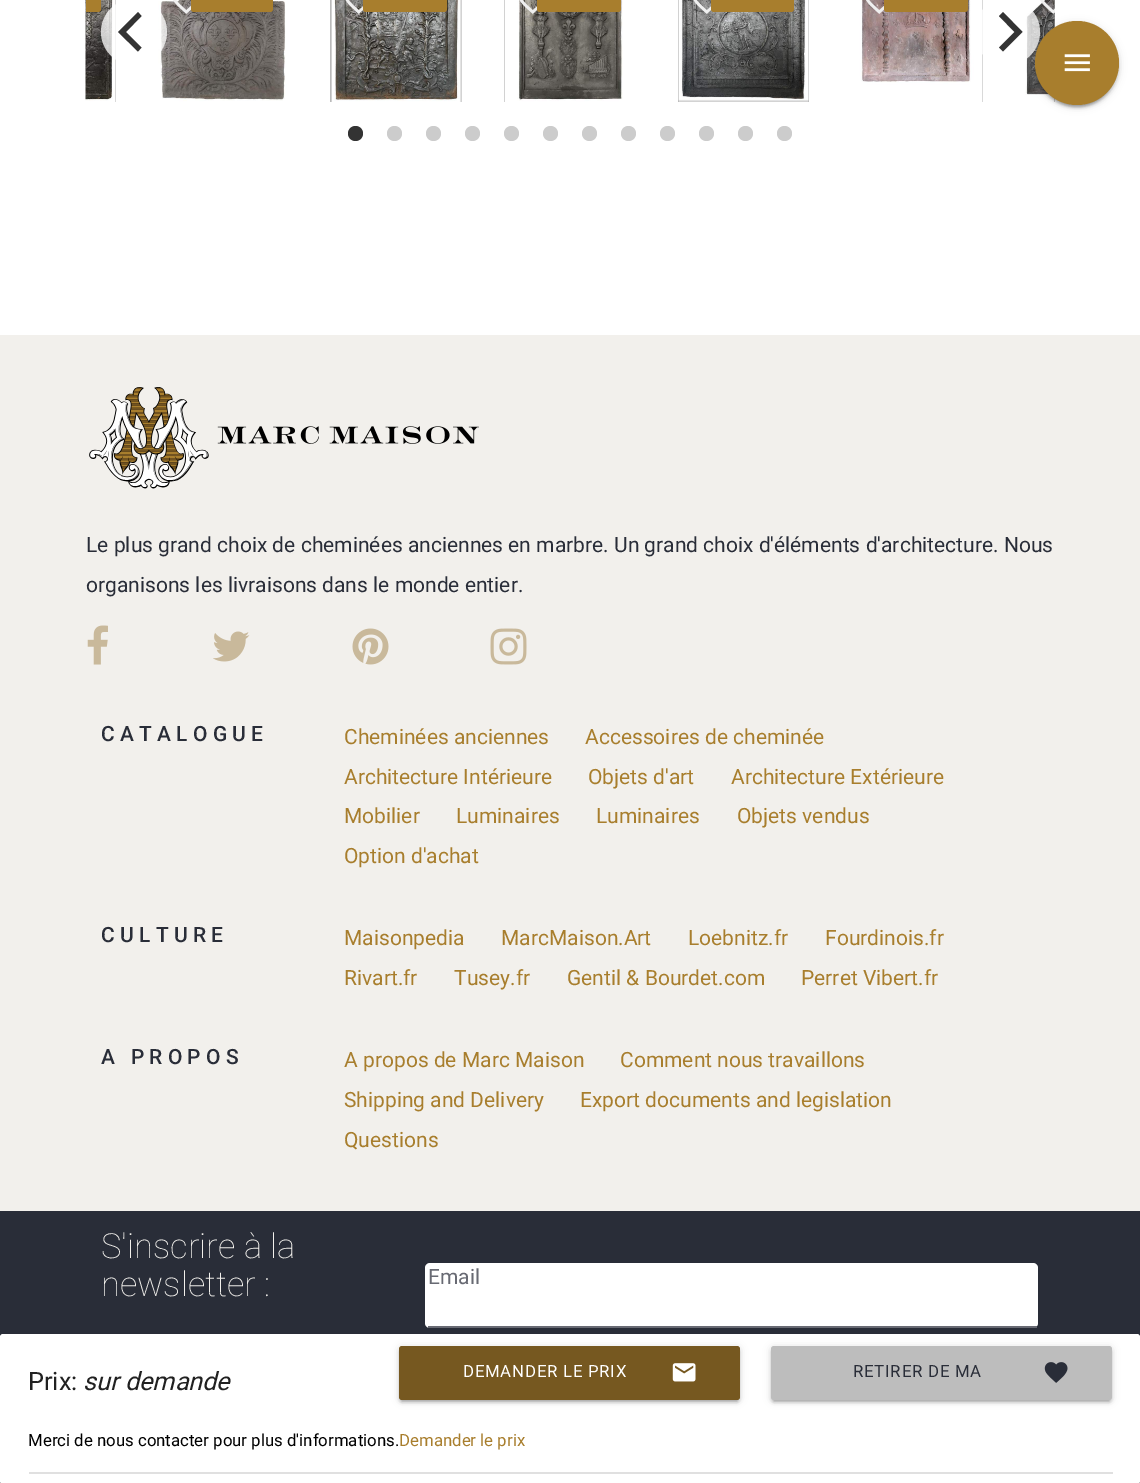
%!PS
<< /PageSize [1140 1483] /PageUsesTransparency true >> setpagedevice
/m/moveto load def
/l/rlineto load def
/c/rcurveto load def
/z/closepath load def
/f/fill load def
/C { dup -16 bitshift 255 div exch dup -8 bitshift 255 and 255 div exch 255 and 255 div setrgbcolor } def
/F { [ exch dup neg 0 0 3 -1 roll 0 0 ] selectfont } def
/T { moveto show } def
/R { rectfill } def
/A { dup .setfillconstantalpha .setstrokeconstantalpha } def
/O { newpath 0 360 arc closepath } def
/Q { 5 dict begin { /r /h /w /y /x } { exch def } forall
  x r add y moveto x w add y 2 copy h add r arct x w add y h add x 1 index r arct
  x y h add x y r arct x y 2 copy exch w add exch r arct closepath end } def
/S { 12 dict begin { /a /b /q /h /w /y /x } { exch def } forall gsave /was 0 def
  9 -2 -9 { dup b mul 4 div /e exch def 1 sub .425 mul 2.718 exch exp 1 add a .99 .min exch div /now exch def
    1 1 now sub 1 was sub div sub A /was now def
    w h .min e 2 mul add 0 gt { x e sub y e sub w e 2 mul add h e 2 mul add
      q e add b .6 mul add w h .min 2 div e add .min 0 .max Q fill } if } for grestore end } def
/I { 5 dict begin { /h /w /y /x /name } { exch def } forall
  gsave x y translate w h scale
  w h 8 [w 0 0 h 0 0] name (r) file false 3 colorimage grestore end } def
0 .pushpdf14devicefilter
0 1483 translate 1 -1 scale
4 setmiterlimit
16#FFFFFF C
0 0 1140 1483 R
16#A0A0A0 C
1054 0 1 102 R
(19.rgb) 1025 0 30 102 I
982 0 1 102 R
(17.rgb) 851 0 132 102 I
0.75 A
16#FFFFFF C
1007 32 33 O f
1 A
16#000000 C
1038 29 78 78 39 1 .2 S
(20.rgb) 1040 0 15 14 I
16#333333 C
1022.5 32 m -19.5 -20 l -4 4 l 15.5 16 l -15.5 15.5 l 4 4 l z f
16#000000 C
1035 23 84 84 42 4 .12 S
1035 24 84 84 42 1.5 .14 S
16#A87E2D C
1077 63 42 O f
(1.rgb) 1064 54 26 18 I
16#F2F0EC C
0 335 1140 876 R
(2.rgb) 89 387 120 102 I
(3.rgb) 217 426 262 18 I
/Roboto-Regular 21 F
16#292D38 C
(Le plus grand choix de cheminées anciennes en marbre. Un grand choix d'éléments d'architecture. Nous) 86 552 T
(organisons les livraisons dans le monde entier.) 86 592 T
(4.rgb) 87 625 21 40 I
(5.rgb) 213 631 37 31 I
(6.rgb) 352 628 37 37 I
(7.rgb) 490 628 37 37 I
/Roboto-Medium 21 F
101 741 m 5.25 0 (CATALOGUE) ashow
/Roboto-Regular 21 F
16#A87E2D C
(Cheminées anciennes) 344 744 T
(Accessoires de cheminée) 585 744 T
(Architecture Intérieure) 344 784 T
(Objets d'art) 588 784 T
(Architecture Extérieure) 731 784 T
(Mobilier) 344 823 T
(Luminaires) 456 823 T
(Luminaires) 596 823 T
(Objets vendus) 737 823 T
(Option d'achat) 344 863 T
/Roboto-Medium 21 F
16#292D38 C
101 942 m 5.25 0 (CULTURE) ashow
/Roboto-Regular 21 F
16#A87E2D C
(Maisonpedia) 344 945 T
(MarcMaison.Art) 501 945 T
(Loebnitz.fr) 688 945 T
(Fourdinois.fr) 825 945 T
(Rivart.fr) 344 985 T
(Tusey.fr) 454 985 T
(Gentil & Bourdet.com) 567 985 T
(Perret Vibert.fr) 801 985 T
/Roboto-Medium 21 F
16#292D38 C
101 1064 m 5.25 0 (A PROPOS) ashow
/Roboto-Regular 21 F
16#A87E2D C
(A propos de Marc Maison) 344 1067 T
(Comment nous travaillons) 620 1067 T
(Shipping and Delivery) 344 1107 T
(Export documents and legislation) 580 1107 T
(Questions) 344 1147 T
16#292D38 C
0 1211 1140 272 R
/Roboto-Thin 34.5 F
16#F2F0EC C
(S'inscrire à la) 101 1258 T
(newsletter :) 101 1296 T
16#FFFFFF C
425 1263 613 65 5 Q f
16#686A73 C
428 1326 609 2 R
/Roboto-Regular 21 F
(Email) 428 1284 T
16#A0A0A0 C
115 0 1 102 R
(8.rgb) 85 0 31 102 I
16#A87E2D C
86 -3 m 12 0 l 1.5 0 3 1.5 3 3 c 0 9 l 0 1.5 -1.5 3 -3 3 c -12 0 l z f
(9.rgb) 158 0 130 102 I
(10.rgb) 173 0 19 14 I
191 -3 82 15 3 Q f
16#A0A0A0 C
330 0 1 102 R
(11.rgb) 330 0 132 102 I
(12.rgb) 345 0 19 14 I
16#A87E2D C
363 -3 84 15 3 Q f
16#A0A0A0 C
504 0 1 102 R
(13.rgb) 504 0 132 102 I
(14.rgb) 519 0 19 14 I
16#A87E2D C
537 -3 84 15 3 Q f
16#A0A0A0 C
678 0 131 102 R
(15.rgb) 678 0 131 102 I
(16.rgb) 693 0 19 14 I
16#A87E2D C
711 -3 83 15 3 Q f
(18.rgb) 866 0 19 14 I
884 -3 84 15 3 Q f
0.75 A
16#FFFFFF C
134 32 33 O f
1 A
16#333333 C
118 32 m 20 19.5 l 3.5 -4 l -15.5 -15.5 l 15.5 -16 l -3.5 -4 l z f
355.5 133.5 7.5 O f
16#CCCCCC C
394.5 133.5 7.5 O f
433.5 133.5 7.5 O f
472.5 133.5 7.5 O f
511.5 133.5 7.5 O f
550.5 133.5 7.5 O f
589.5 133.5 7.5 O f
628.5 133.5 7.5 O f
667.5 133.5 7.5 O f
706.5 133.5 7.5 O f
745.5 133.5 7.5 O f
784.5 133.5 7.5 O f
16#000000 C
2 1340 1137 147 1.5 4 .3 S
16#FFFFFF C
0 1334 1140 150 3 Q f
/Roboto-Regular 25.25 F
16#212121 C
(Prix:) 28 1390 T
/Roboto-Italic 25.25 F
(sur demande) 83 1390 T
16#000000 C
402 1353 335 48 0 1 .2 S
399 1347 341 54 3 4 .12 S
399 1349 341 54 3 1.5 .14 S
16#765820 C
399 1346 341 54 3 Q f
/Roboto-Regular 16.8 F
16#FFFFFF C
463 1377 m .75 0 (DEMANDER LE PRIX) ashow
(21.rgb) 672 1363 24 19 I
16#000000 C
774 1353 335 48 0 1 .2 S
771 1347 341 54 3 4 .12 S
771 1349 341 54 3 1.5 .14 S
16#BDBDBD C
771 1346 341 54 3 Q f
16#292D38 C
853 1377 m .75 0 (RETIRER DE MA) ashow
(22.rgb) 1044 1362 24 21 I
16#000000 C
(Merci de nous contacter pour plus d'informations.) 28 1446 T
16#A87E2D C
(Demander le prix) 399 1446 T
16#E0E0E0 C
29 1472 1084 2 R
.poppdf14devicefilter showpage
